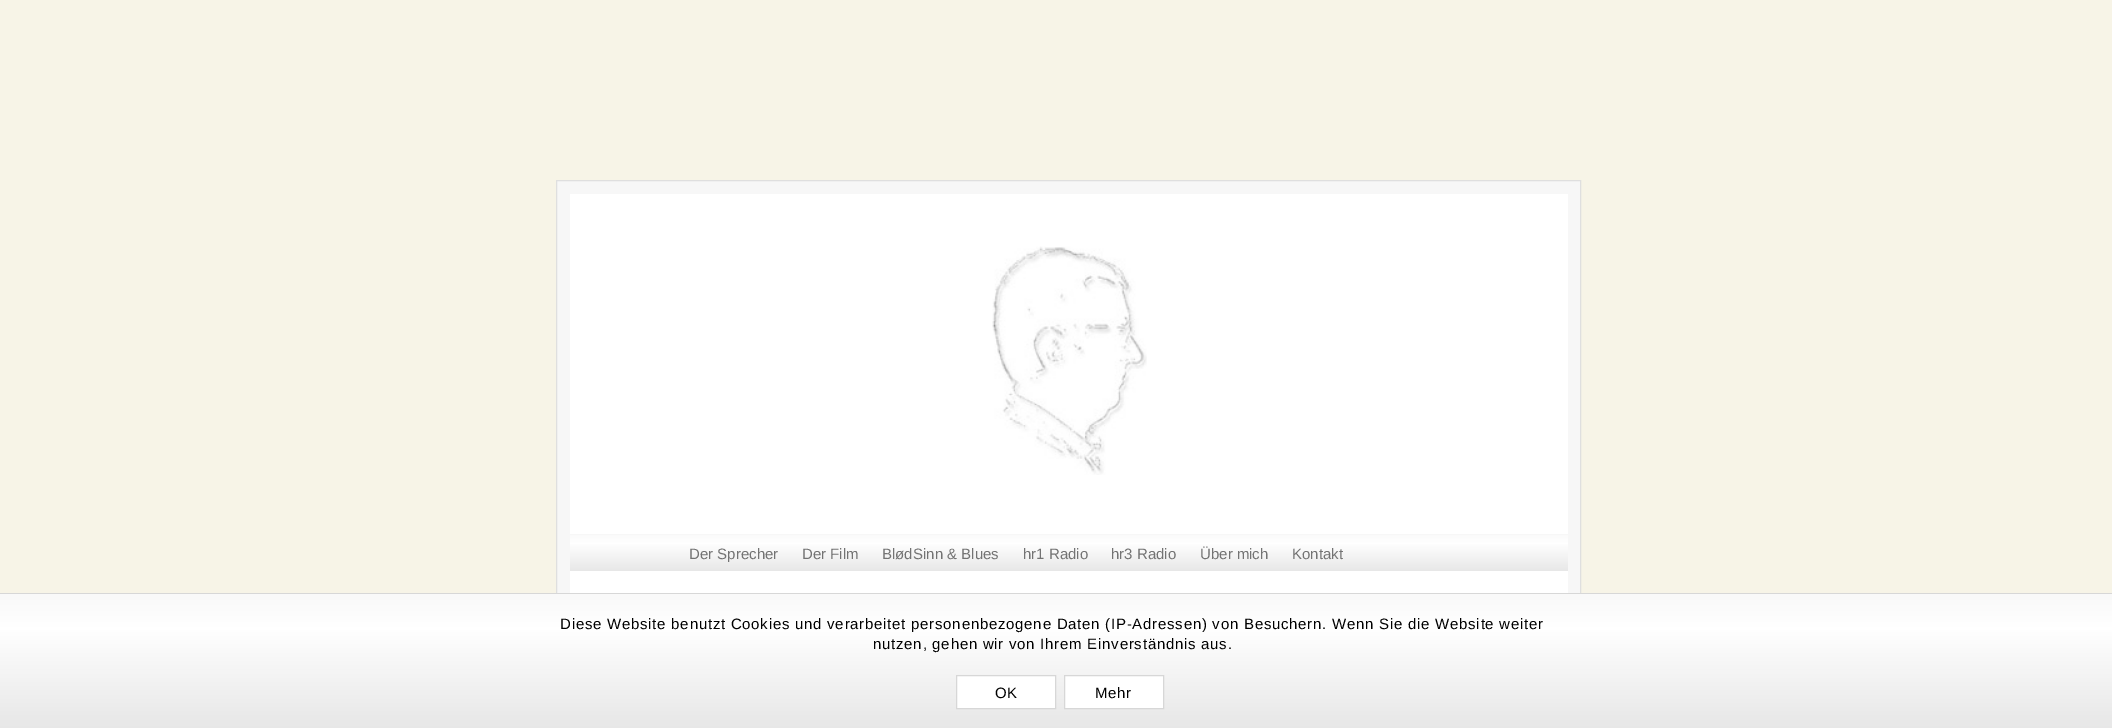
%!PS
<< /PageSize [2112 728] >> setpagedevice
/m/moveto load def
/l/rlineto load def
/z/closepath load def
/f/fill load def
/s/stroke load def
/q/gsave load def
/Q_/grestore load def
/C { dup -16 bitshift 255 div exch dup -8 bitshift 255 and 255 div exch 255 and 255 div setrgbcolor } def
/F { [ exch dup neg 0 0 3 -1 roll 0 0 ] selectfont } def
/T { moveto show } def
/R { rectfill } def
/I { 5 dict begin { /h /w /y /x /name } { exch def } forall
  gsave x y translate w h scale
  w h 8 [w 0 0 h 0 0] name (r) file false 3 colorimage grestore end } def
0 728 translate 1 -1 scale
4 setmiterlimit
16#F7F4E7 C
0 0 2112 728 R
16#F7F7F7 C
557 181 1023 412 R
16#DFDFDF C
556.5 180.5 1024 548 rectstroke
16#FFFFFF C
570 194 998 340 R
(1.rgb) 992 246 155 229 I
q 570 535 m 998 0 l 0 36 l -998 0 l z clip newpath
<< /ShadingType 2 /ColorSpace /DeviceRGB /Coords [1069 534 1069 571] /Extend [true true] /Function << /FunctionType 3 /Domain [0 1] /Functions [<< /FunctionType 2 /Domain [0 1] /C0 [.976 .976 .976] /C1 [1 1 1] /N 1 >> << /FunctionType 2 /Domain [0 1] /C0 [1 1 1] /C1 [.906 .906 .906] /N 1 >> << /FunctionType 2 /Domain [0 1] /C0 [.906 .906 .906] /C1 [.906 .906 .906] /N 1 >>] /Bounds [.25 .99] /Encode [0 1 0 1 0 1] >> >> shfill Q_
/LiberationSans-Regular 15 F
16#737373 C
(Der Sprecher) 689 559 T
(Der Film) 802 559 T
(BlødSinn & Blues) 882 559 T
(hr1 Radio) 1023 559 T
(hr3 Radio) 1111 559 T
(Über mich) 1200 559 T
(Kontakt) 1292 559 T
16#FFFFFF C
570 571 998 22 R
q 0 594 m 2112 0 l 0 134 l -2112 0 l z clip newpath
<< /ShadingType 2 /ColorSpace /DeviceRGB /Coords [1056 594 1056 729] /Extend [true true] /Function << /FunctionType 3 /Domain [0 1] /Functions [<< /FunctionType 2 /Domain [0 1] /C0 [.976 .976 .976] /C1 [1 1 1] /N 1 >> << /FunctionType 2 /Domain [0 1] /C0 [1 1 1] /C1 [.906 .906 .906] /N 1 >> << /FunctionType 2 /Domain [0 1] /C0 [.906 .906 .906] /C1 [.906 .906 .906] /N 1 >>] /Bounds [.25 .99] /Encode [0 1 0 1 0 1] >> >> shfill Q_
16#D7D7D7 C
0 593 2112 1 R
16#000000 C
560 629 m .75 0 (Diese Website benutzt Cookies und verarbeitet personenbezogene Daten \(IP-Adressen\) von Besuchern. Wenn Sie die Website weiter) ashow
873 649 m .75 0 (nutzen, gehen wir von Ihrem Einverständnis aus.) ashow
16#FFFFFF C
956.5 675.5 m 99 0 l 0 33 l -99 0 l z q f Q_
16#D7D7D7 C
s
16#000000 C
995 698 m .75 0 (OK) ashow
16#FFFFFF C
1064.5 675.5 m 99 0 l 0 33 l -99 0 l z q f Q_
16#D7D7D7 C
s
16#000000 C
1095 698 m .75 0 (Mehr) ashow
showpage
